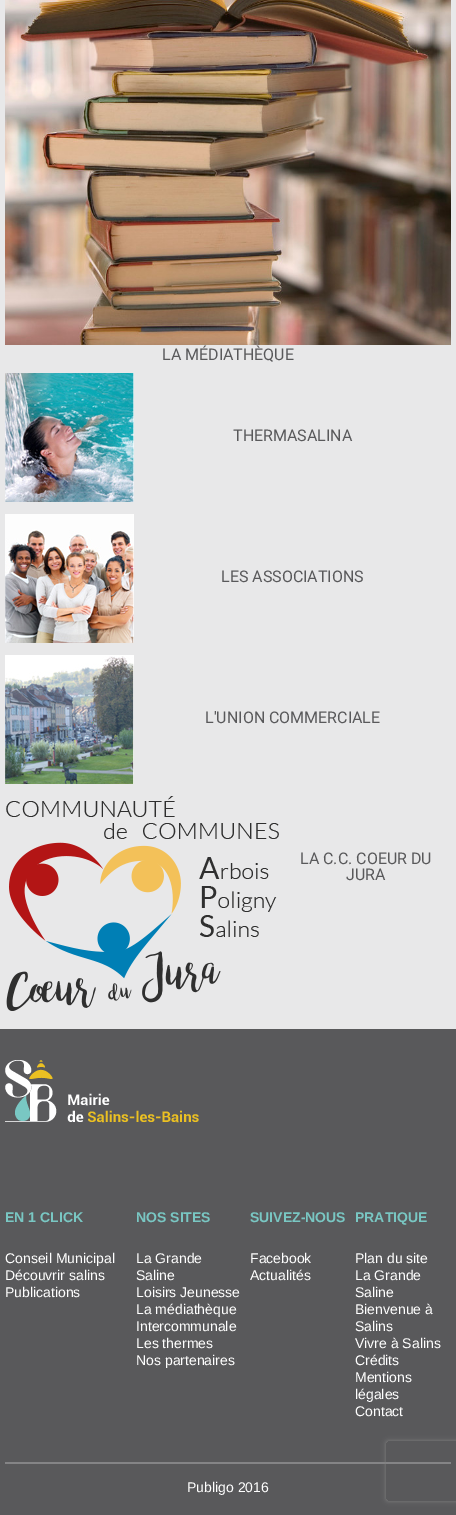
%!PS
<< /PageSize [456 1515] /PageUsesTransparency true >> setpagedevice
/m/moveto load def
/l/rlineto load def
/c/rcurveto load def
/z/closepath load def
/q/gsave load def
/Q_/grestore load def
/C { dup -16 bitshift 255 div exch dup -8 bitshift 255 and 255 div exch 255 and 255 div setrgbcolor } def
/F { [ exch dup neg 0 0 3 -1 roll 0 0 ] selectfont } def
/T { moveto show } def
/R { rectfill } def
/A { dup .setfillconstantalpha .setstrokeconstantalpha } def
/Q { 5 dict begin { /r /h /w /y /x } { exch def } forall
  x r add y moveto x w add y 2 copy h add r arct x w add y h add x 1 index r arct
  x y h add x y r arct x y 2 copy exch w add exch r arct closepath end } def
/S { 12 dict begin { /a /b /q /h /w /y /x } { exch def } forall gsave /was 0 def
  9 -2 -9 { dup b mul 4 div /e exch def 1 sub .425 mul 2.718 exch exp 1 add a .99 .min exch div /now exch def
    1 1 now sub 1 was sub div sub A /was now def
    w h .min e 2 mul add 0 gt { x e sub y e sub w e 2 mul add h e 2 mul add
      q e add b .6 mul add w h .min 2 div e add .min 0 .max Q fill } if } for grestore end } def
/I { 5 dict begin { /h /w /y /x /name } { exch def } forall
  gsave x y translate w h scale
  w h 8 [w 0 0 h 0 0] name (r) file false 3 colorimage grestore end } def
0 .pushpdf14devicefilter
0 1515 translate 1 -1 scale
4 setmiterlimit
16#E8E8E9 C
0 0 456 1515 R
(1.rgb) 5 0 446 345 I
/Roboto-Regular 16 F
16#59595B C
(LA MÉDIATHÈQUE) 162 360 T
(2.rgb) 5 373 129 129 I
(THERMASALINA) 233 441 T
(3.rgb) 5 514 129 129 I
(LES ASSOCIATIONS) 221 582 T
(4.rgb) 5 655 129 129 I
(L'UNION COMMERCIALE) 205 723 T
(5.rgb) 6 796 273 215 I
(LA C.C. COEUR DU) 300 864 T
(JURA) 346 880 T
0 1029 456 486 R
(6.rgb) 5 1060 194 63 I
/LiberationSans-Bold 14 F
16#79C7C3 C
(EN 1 CLICK) 5 1222 T
/LiberationSans-Regular 14 F
16#FFFFFF C
(Conseil Municipal) 5 1263 T
(Découvrir salins) 5 1280 T
(Publications) 5 1297 T
/LiberationSans-Bold 14 F
16#79C7C3 C
(NOS SITES) 136 1222 T
/LiberationSans-Regular 14 F
16#FFFFFF C
(La Grande) 136 1263 T
(Saline) 136 1280 T
(Loisirs Jeunesse) 136 1297 T
(La médiathèque) 136 1314 T
(Intercommunale) 136 1331 T
(Les thermes) 136 1348 T
(Nos partenaires) 136 1365 T
/LiberationSans-Bold 14 F
16#79C7C3 C
(SUIVEZ-NOUS) 250 1222 T
/LiberationSans-Regular 14 F
16#FFFFFF C
(Facebook) 250 1263 T
(Actualités) 250 1280 T
/LiberationSans-Bold 14 F
16#79C7C3 C
(PRATIQUE) 355 1222 T
/LiberationSans-Regular 14 F
16#FFFFFF C
(Plan du site) 355 1263 T
(La Grande) 355 1280 T
(Saline) 355 1297 T
(Bienvenue à) 355 1314 T
(Salins) 355 1331 T
(Vivre à Salins) 355 1348 T
(Crédits) 355 1365 T
(Mentions) 355 1382 T
(légales) 355 1399 T
(Contact) 355 1416 T
16#848486 C
5 1462 446 2 R
16#FFFFFF C
(Publigo 2016) 187 1492 T
q
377 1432 m 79 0 l 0 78 l -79 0 l z 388 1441 m 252 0 l 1 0 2 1 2 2 c 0 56 l 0 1 -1 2 -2 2 c -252 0 l -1 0 -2 -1 -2 -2 c 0 -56 l 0 -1 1 -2 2 -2 c z eoclip newpath
16#808080 C
386 1441 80 60 2 2.5 1 S
Q_
.poppdf14devicefilter showpage
